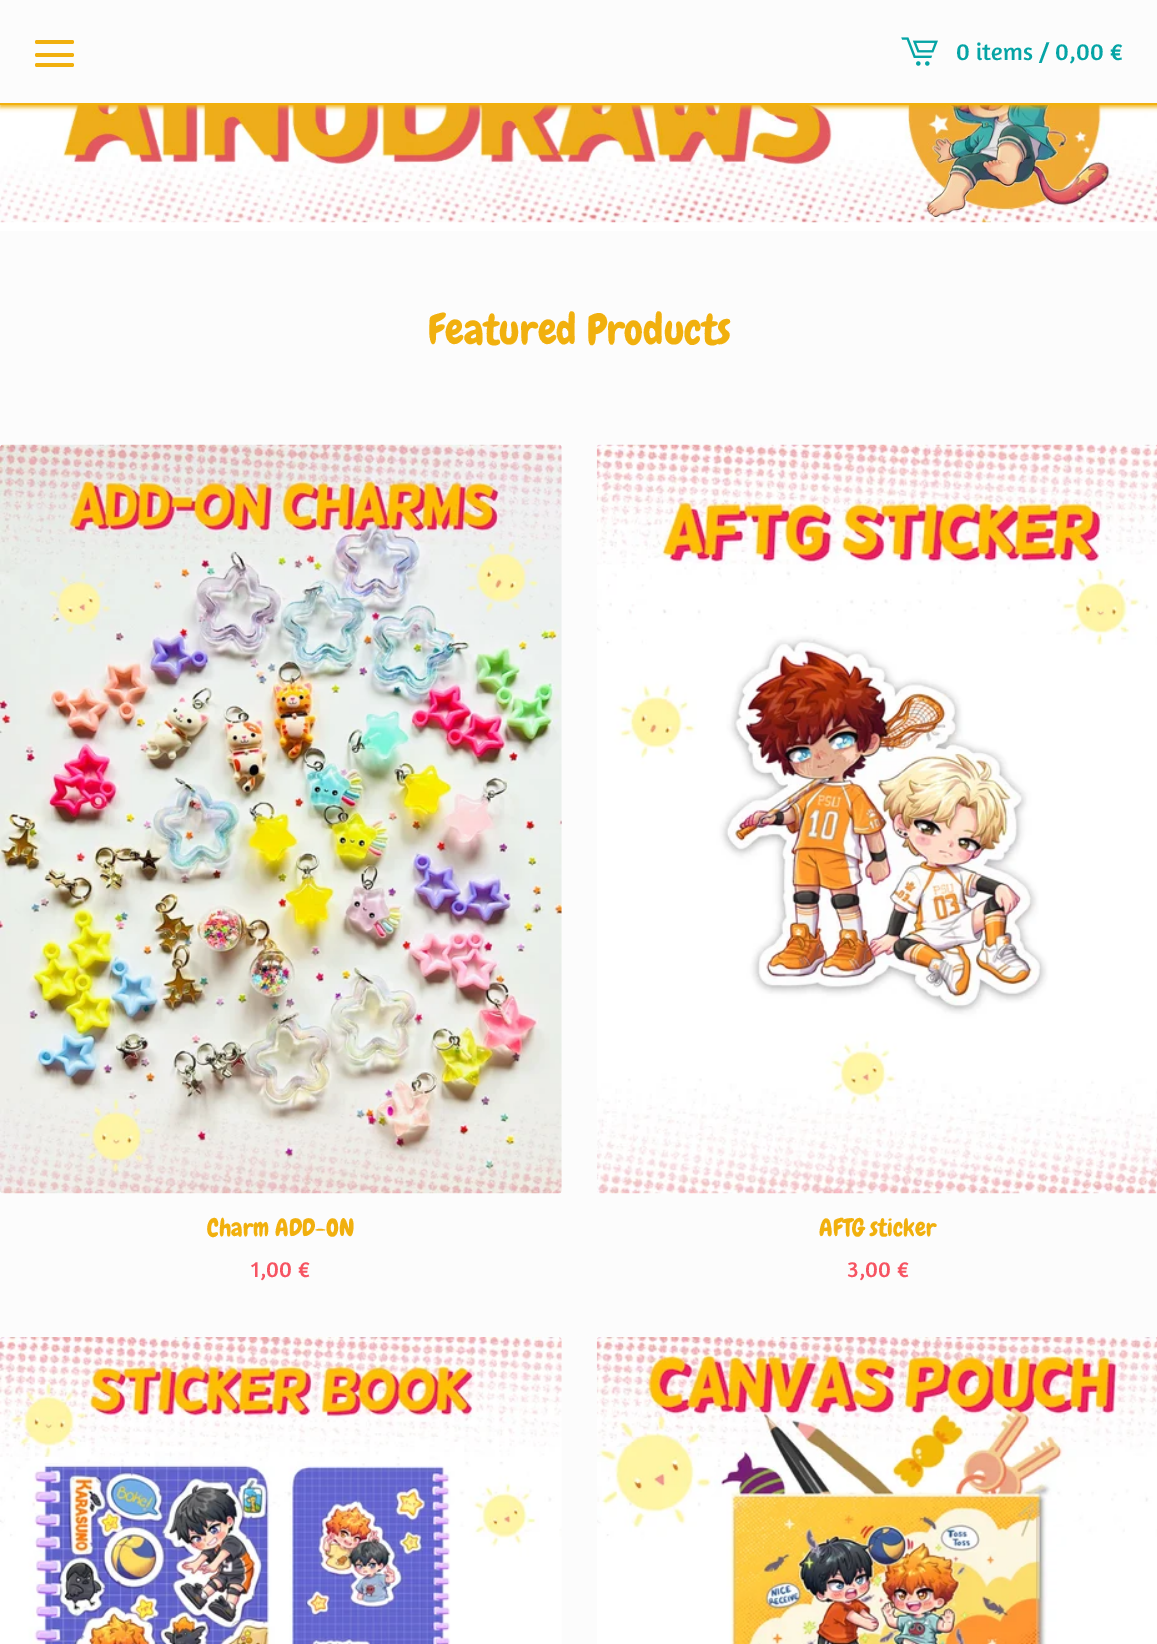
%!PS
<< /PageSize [1157 1644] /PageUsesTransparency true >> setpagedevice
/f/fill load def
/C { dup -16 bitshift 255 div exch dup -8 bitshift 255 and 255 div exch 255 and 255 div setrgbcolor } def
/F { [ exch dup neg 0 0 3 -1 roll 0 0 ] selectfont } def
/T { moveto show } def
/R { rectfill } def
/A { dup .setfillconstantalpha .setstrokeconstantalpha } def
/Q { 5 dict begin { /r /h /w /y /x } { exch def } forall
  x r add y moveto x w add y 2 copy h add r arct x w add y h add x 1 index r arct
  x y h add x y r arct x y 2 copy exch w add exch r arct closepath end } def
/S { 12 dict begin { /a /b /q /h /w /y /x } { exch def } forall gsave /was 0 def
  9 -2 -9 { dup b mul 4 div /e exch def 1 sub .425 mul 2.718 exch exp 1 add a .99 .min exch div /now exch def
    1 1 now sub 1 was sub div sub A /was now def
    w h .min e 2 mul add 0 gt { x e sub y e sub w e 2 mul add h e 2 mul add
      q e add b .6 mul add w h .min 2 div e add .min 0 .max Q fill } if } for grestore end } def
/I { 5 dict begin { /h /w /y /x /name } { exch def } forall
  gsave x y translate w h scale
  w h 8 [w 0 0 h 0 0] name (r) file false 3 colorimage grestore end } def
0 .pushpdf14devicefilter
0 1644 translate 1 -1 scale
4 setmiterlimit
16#FCFCFC C
0 0 1157 1644 R
16#FFFFFF C
0 222 1157 9 R
(2.rgb) 0 105 1157 118 I
16#F1B00E C
0 2 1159 105 0 2.5 1 S
16#FCFCFC C
0 0 1157 103 R
16#F1B00E C
0 103 1157 2 R
35 40 39 4 2 Q f
35 53 39 4 2 Q f
35 63 39 4 2 Q f
(1.rgb) 901 37 37 29 I
/Amaranth-Regular 24.5 F
16#05A4A5 C
(0 items / 0,00 €) 956 60 T
/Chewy-Regular 42 F
16#F1B00E C
(Featured Products) 428 344 T
(3.rgb) 0 444 562 750 I
/Chewy-Regular 24.5 F
(Charm ADD-ON) 207 1236 T
/Amaranth-Regular 23 F
16#F65462 C
(1,00 €) 251 1277 T
(4.rgb) 596 444 561 750 I
/Chewy-Regular 24.5 F
16#F1B00E C
(AFTG sticker) 819 1236 T
/Amaranth-Regular 23 F
16#F65462 C
(3,00 €) 847 1277 T
(5.rgb) 0 1337 562 307 I
(6.rgb) 596 1337 561 307 I
.poppdf14devicefilter showpage
